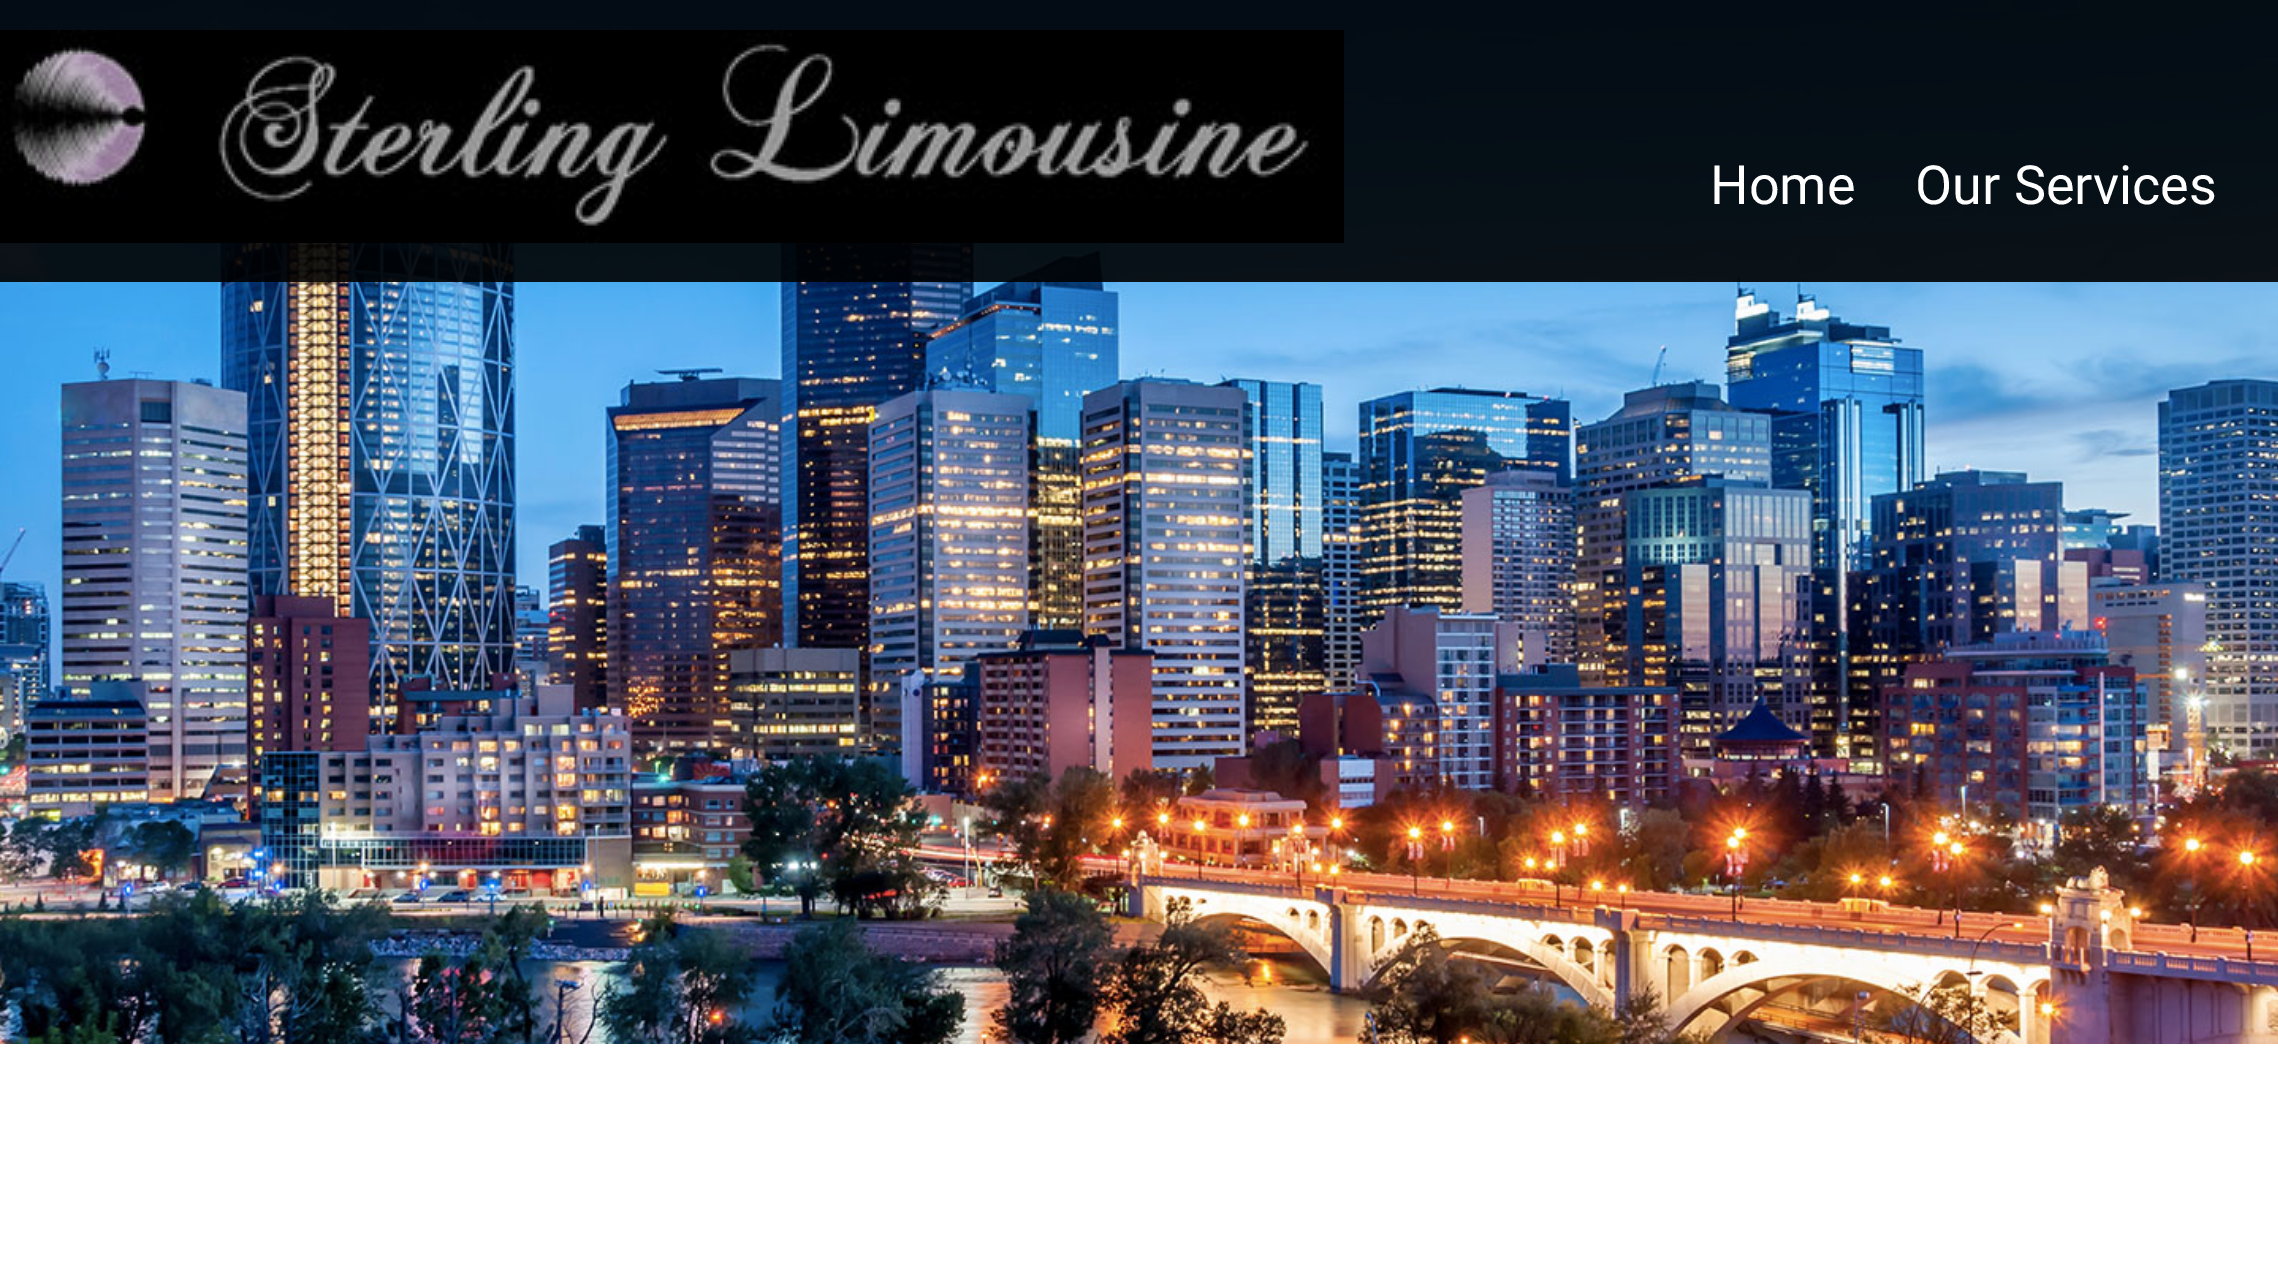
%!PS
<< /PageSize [2278 1262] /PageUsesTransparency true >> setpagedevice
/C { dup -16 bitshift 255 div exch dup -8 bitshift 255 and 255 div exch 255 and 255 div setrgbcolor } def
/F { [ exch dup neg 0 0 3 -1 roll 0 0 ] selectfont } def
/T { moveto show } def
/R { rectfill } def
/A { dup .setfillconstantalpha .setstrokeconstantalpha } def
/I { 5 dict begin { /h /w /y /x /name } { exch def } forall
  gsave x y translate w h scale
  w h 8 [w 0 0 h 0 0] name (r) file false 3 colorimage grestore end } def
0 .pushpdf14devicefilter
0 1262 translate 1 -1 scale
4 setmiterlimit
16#FFFFFF C
0 0 2278 1262 R
(1.rgb) 0 0 2278 1044 I
0.9 A
16#000000 C
0 0 2278 282 R
1 A
(2.rgb) 0 30 1344 213 I
/Roboto-Regular 54 F
16#FFFFFF C
(Home) 1710 204 T
(Our Services) 1915 204 T
.poppdf14devicefilter showpage
